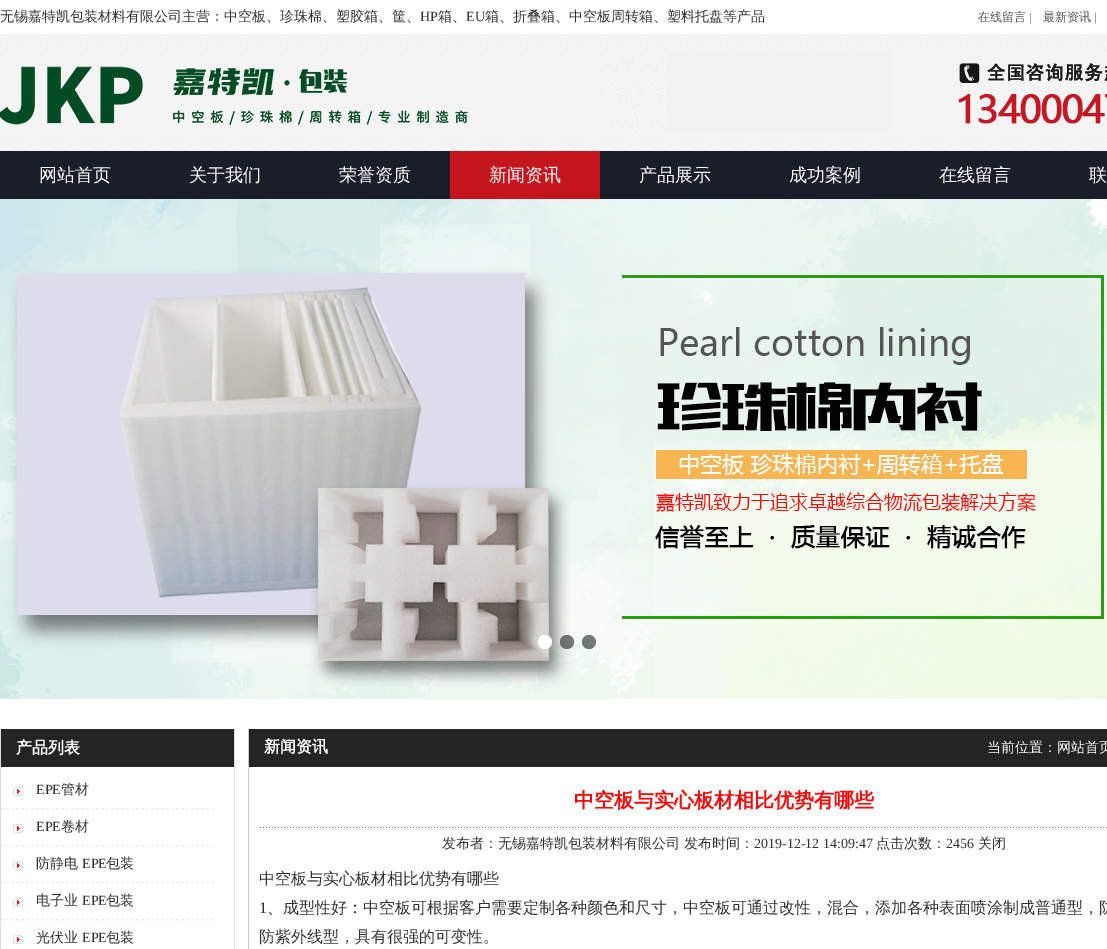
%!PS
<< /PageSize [1107 949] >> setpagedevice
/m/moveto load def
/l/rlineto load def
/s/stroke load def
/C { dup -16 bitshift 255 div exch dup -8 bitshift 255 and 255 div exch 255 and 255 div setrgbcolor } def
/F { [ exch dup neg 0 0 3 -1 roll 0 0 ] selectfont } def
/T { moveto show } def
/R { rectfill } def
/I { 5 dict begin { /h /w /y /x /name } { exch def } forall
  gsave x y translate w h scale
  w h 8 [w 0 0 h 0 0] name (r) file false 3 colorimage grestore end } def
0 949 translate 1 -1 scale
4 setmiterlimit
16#FFFFFF C
0 0 1107 949 R
(1.rgb) 0 34 1107 117 I
/WenQuanYiZenHei-Medium 14 F
16#333333 C
(无锡嘉特凯包装材料有限公司主营：中空板、珍珠棉、塑胶箱、筐、) 0 21 T
/LiberationSerif-Regular 14 F
(HP) 420 21 T
/WenQuanYiZenHei-Medium 14 F
(箱、) 438 21 T
/LiberationSerif-Regular 14 F
(EU) 466 21 T
/WenQuanYiZenHei-Medium 14 F
(箱、折叠箱、中空板周转箱、塑料托盘等产品) 485 21 T
/WenQuanYiZenHei-Medium 12 F
16#555555 C
(在线留言) 978 21 T
/LiberationSerif-Regular 12 F
(|) 1029 21 T
/WenQuanYiZenHei-Medium 12 F
(最新资讯) 1043 21 T
/LiberationSerif-Regular 12 F
(|) 1094 21 T
(2.rgb) 0 55 600 74 I
(3.rgb) 666 51 441 80 I
16#1A1E29 C
0 151 1107 48 R
/WenQuanYiZenHei-Medium 18 F
16#FFFFFF C
(网站首页) 39 181 T
(关于我们) 189 181 T
(荣誉资质) 339 181 T
16#C4151C C
450 151 150 48 R
16#FFFFFF C
(新闻资讯) 489 181 T
(产品展示) 639 181 T
(成功案例) 789 181 T
(在线留言) 939 181 T
(联) 1089 181 T
(4.rgb) 0 199 1107 500 I
(5.rgb) 538 635 14 14 I
(6.rgb) 560 635 14 14 I
(7.rgb) 582 635 14 14 I
16#DDDDDD C
234 729 1 220 R
0 729 1 220 R
16#242424 C
1 729 233 38 R
/WenQuanYiZenHei-Bold 16 F
16#FFFFFF C
(产品列表) 16 753 T
(8.rgb) 13 787 10 9 I
16#EBEBEB C
[3 2] 0 setdash
1 808.5 m 213 0 l s
/LiberationSerif-Regular 14 F
16#333333 C
(EPE) 36 794 T
/WenQuanYiZenHei-Medium 14 F
(管材) 61 794 T
(8.rgb) 13 824 10 9 I
16#EBEBEB C
1 845.5 m 213 0 l s
/LiberationSerif-Regular 14 F
16#333333 C
(EPE) 36 831 T
/WenQuanYiZenHei-Medium 14 F
(卷材) 61 831 T
(8.rgb) 13 861 10 9 I
16#EBEBEB C
1 882.5 m 213 0 l s
16#333333 C
(防静电) 36 868 T
/LiberationSerif-Regular 14 F
(EPE) 82 868 T
/WenQuanYiZenHei-Medium 14 F
(包装) 106 868 T
(8.rgb) 13 898 10 9 I
16#EBEBEB C
1 919.5 m 213 0 l s
16#333333 C
(电子业) 36 905 T
/LiberationSerif-Regular 14 F
(EPE) 82 905 T
/WenQuanYiZenHei-Medium 14 F
(包装) 106 905 T
(8.rgb) 13 935 10 9 I
(光伏业) 36 942 T
/LiberationSerif-Regular 14 F
(EPE) 82 942 T
/WenQuanYiZenHei-Medium 14 F
(包装) 106 942 T
16#CCCCCC C
248 729 1 220 R
16#242424 C
249 729 858 38 R
/WenQuanYiZenHei-Bold 16 F
16#FFFFFF C
(新闻资讯) 264 752 T
/WenQuanYiZenHei-Medium 14 F
(当前位置：网站首页) 987 752 T
/WenQuanYiZenHei-Bold 20 F
16#FF0000 C
(中空板与实心板材相比优势有哪些) 574 807 T
(9.rgb) 259 827 848 1 I
/WenQuanYiZenHei-Medium 14 F
16#333333 C
(发布者：无锡嘉特凯包装材料有限公司) 442 848 T
(发布时间：) 684 848 T
/LiberationSerif-Regular 14 F
(2019-12-12 14:09:47) 754 848 T
/WenQuanYiZenHei-Medium 14 F
(点击次数：) 876 848 T
/LiberationSerif-Regular 14 F
(2456) 946 848 T
/WenQuanYiZenHei-Medium 14 F
(关闭) 978 848 T
/WenQuanYiZenHei-Medium 16 F
(中空板与实心板材相比优势有哪些) 259 884 T
/LiberationSerif-Regular 16 F
(1) 259 913 T
/WenQuanYiZenHei-Medium 16 F
(、成型性好：中空板可根据客户需要定制各种颜色和尺寸，中空板可通过改性，混合，添加各种表面喷涂制成普通型，防) 267 913 T
(防紫外线型，具有很强的可变性。) 259 942 T
showpage
